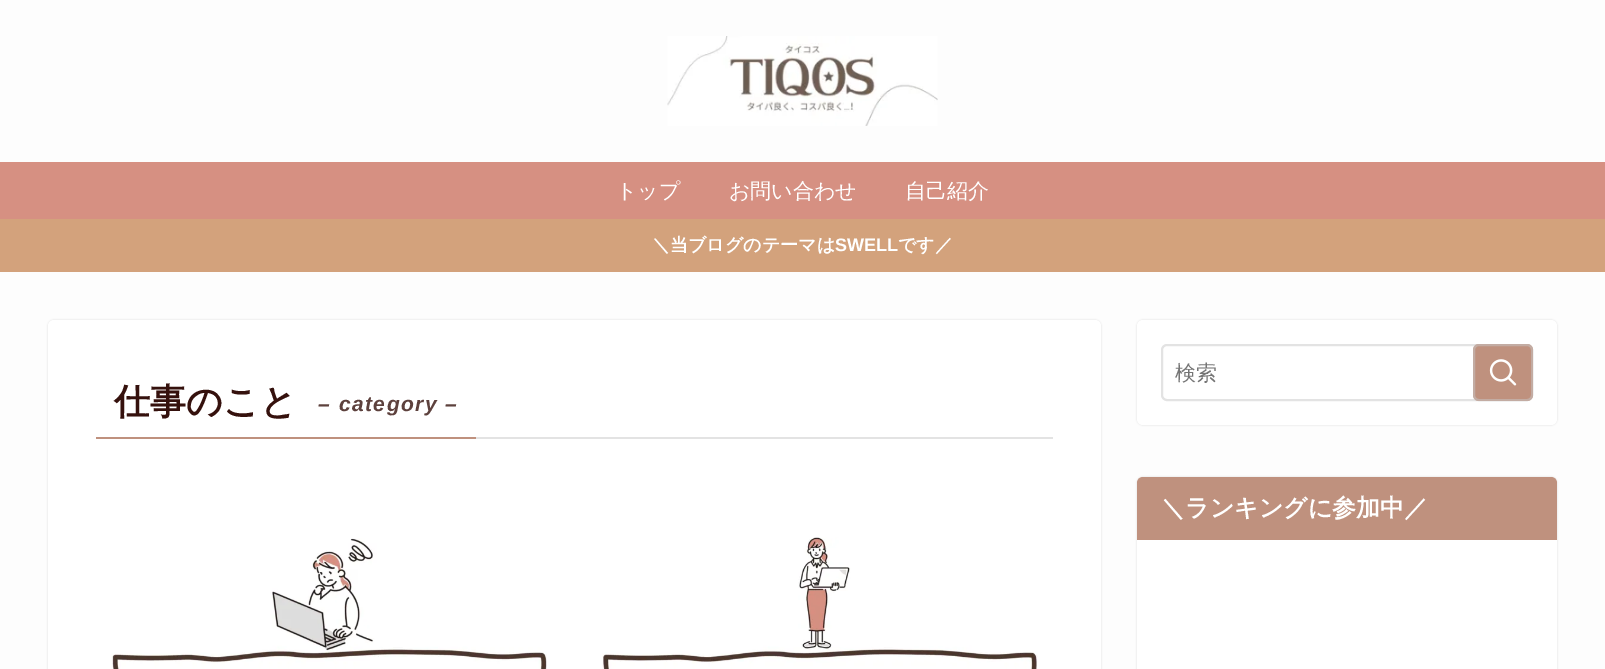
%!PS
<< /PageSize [1605 669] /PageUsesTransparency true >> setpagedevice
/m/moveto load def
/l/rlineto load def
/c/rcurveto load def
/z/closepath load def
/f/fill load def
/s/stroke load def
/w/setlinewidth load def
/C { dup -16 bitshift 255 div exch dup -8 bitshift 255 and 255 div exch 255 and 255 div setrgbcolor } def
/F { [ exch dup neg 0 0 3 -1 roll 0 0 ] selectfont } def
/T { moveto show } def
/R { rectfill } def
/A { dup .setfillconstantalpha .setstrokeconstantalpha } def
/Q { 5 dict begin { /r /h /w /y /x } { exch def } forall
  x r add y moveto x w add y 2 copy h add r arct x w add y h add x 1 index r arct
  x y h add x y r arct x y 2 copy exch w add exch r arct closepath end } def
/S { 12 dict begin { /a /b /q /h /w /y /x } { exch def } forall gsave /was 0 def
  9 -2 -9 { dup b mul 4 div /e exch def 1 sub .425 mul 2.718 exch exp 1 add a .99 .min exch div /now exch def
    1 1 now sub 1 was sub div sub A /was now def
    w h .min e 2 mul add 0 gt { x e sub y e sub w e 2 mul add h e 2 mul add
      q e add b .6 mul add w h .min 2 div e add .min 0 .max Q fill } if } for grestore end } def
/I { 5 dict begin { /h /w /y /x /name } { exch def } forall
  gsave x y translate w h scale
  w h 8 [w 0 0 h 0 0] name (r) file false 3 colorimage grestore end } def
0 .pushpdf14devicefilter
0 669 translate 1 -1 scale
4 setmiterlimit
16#FDFDFD C
0 0 1605 669 R
(1.rgb) 667 36 271 90 I
16#D69082 C
0 162 1605 57 R
/WenQuanYiZenHei-Medium 21 F
16#FFFFFF C
(トップ) 616 198 T
(お問い合わせ) 729 198 T
(自己紹介) 905 198 T
16#D3A27C C
0 219 1605 53 R
/WenQuanYiZenHei-Bold 18 F
16#FFFFFF C
(＼当ブログのテーマは) 652 251 T
/LiberationSans-Bold 18 F
(SWELL) 835 251 T
/WenQuanYiZenHei-Bold 18 F
(です／) 898 251 T
16#000000 C
48 320 1053 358 6 1 .12 S
16#FFFFFF C
48 320 1053 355 6 Q f
16#E3E3E3 C
476 437 577 2 R
16#BF917E C
96 437 380 2 R
/WenQuanYiZenHei-Bold 36 F
16#35110D C
(仕事のこと) 114 414 T
/LiberationSans-BoldItalic 21 F
16#5D413D C
318 411 m 1.5 0 (– category –) ashow
(2.rgb) 111 538 436 131 I
(3.rgb) 602 537 436 132 I
16#000000 C
1137 320 420 105 6 1 .12 S
16#FFFFFF C
1137 320 420 105 6 Q f
16#E3E3E3 C
2 w
1162 345 370 55 5 Q s
/WenQuanYiZenHei-Medium 21 F
16#757575 C
(検索) 1175 380 T
16#BF917E C
1473 344 60 57 6 Q f
0.5 A
16#C7C7C7 C
1474 345 58 55 5 Q s
1 A
(4.rgb) 1489 359 28 27 I
16#000000 C
1137 477 420 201 6 1 .12 S
16#FFFFFF C
1137 477 420 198 6 Q f
16#BF917E C
1143 477 m 408 0 l 3.5 0 6 2.5 6 6 c 0 57 l -420 0 l 0 -57 l 0 -3.5 2.5 -6 6 -6 c z f
/WenQuanYiZenHei-Bold 24 F
16#FFFFFF C
(＼ランキングに参加中／) 1161 516 T
.poppdf14devicefilter showpage
